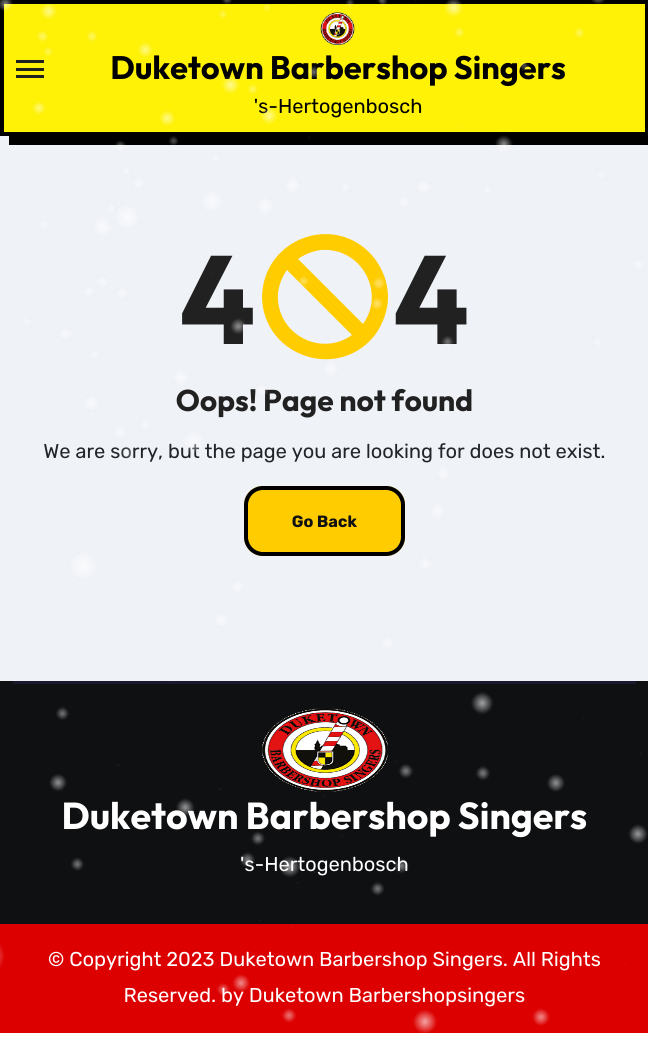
%!PS
<< /PageSize [648 1052] >> setpagedevice
/m/moveto load def
/l/rlineto load def
/c/rcurveto load def
/z/closepath load def
/f/fill load def
/s/stroke load def
/q/gsave load def
/Q_/grestore load def
/w/setlinewidth load def
/C { dup -16 bitshift 255 div exch dup -8 bitshift 255 and 255 div exch 255 and 255 div setrgbcolor } def
/F { [ exch dup neg 0 0 3 -1 roll 0 0 ] selectfont } def
/T { moveto show } def
/R { rectfill } def
/Q { 5 dict begin { /r /h /w /y /x } { exch def } forall
  x r add y moveto x w add y 2 copy h add r arct x w add y h add x 1 index r arct
  x y h add x y r arct x y 2 copy exch w add exch r arct closepath end } def
/I { 5 dict begin { /h /w /y /x /name } { exch def } forall
  gsave x y translate w h scale
  w h 8 [w 0 0 h 0 0] name (r) file false 3 colorimage grestore end } def
0 1052 translate 1 -1 scale
4 setmiterlimit
16#FFFFFF C
0 0 648 1052 R
16#EFF2F7 C
0 136 648 545 R
16#000000 C
9 136 m 0 9 l 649 0 l 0 -136 l -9 0 l 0 127 l z f
16#FFF207 C
2 2 m 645 0 l 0 132 l -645 0 l z q f Q_
16#000000 C
4 w
s
16#212121 C
16 60 28 3 R
16 68 28 3 R
16 75 28 3 R
(2.rgb) 320 12 35 33 I
/Outfit-Bold 32.5 F
16#000000 C
(Duketown Barbershop Singers) 110 79 T
/Rubik-Light 20 F
('s-Hertogenbosch) 254 113 T
/Outfit-Bold 125 F
16#212121 C
(4) 179 344 T
16#FFCC00 C
352 335 m -65 -65 l -5 7 -8 15 -9 23 c -3 40 42 65 74 42 c z 363 324 m 23 -32 -2 -77 -42 -74 c -8 1 -16 4 -23 9 c z 262 297 m 1 -60 76 -86 113 -38 c 8 11 13 24 13 38 c 0 13 -5 27 -13 38 c -37 47 -112 21 -113 -38 c z f
16#212121 C
(4) 393 344 T
/Outfit-Bold 30 F
(Oops! Page not found) 176 411 T
/Rubik-Light 20 F
16#212529 C
(We are sorry, but the page you are looking for does not exist.) 43 458 T
16#FFCC00 C
246 488 157 66 17 Q q f Q_
16#000000 C
s
/Rubik-Bold 16.25 F
16#0F1012 C
(Go Back) 292 527 T
0 681 648 243 R
16#1A182E C
13 681 623 3 R
(3.rgb) 262 708 126 84 I
/Outfit-Bold 37.5 F
16#FFFFFF C
(Duketown Barbershop Singers) 62 829 T
/Rubik-Light 20 F
('s-Hertogenbosch) 240 871 T
16#DD0000 C
0 924 648 109 R
16#FFFFFF C
(© Copyright 2023 Duketown Barbershop Singers. All Rights) 48 966 T
(Reserved. by Duketown Barbershopsingers) 124 1002 T
(1.rgb) 0 0 648 1033 I
showpage
